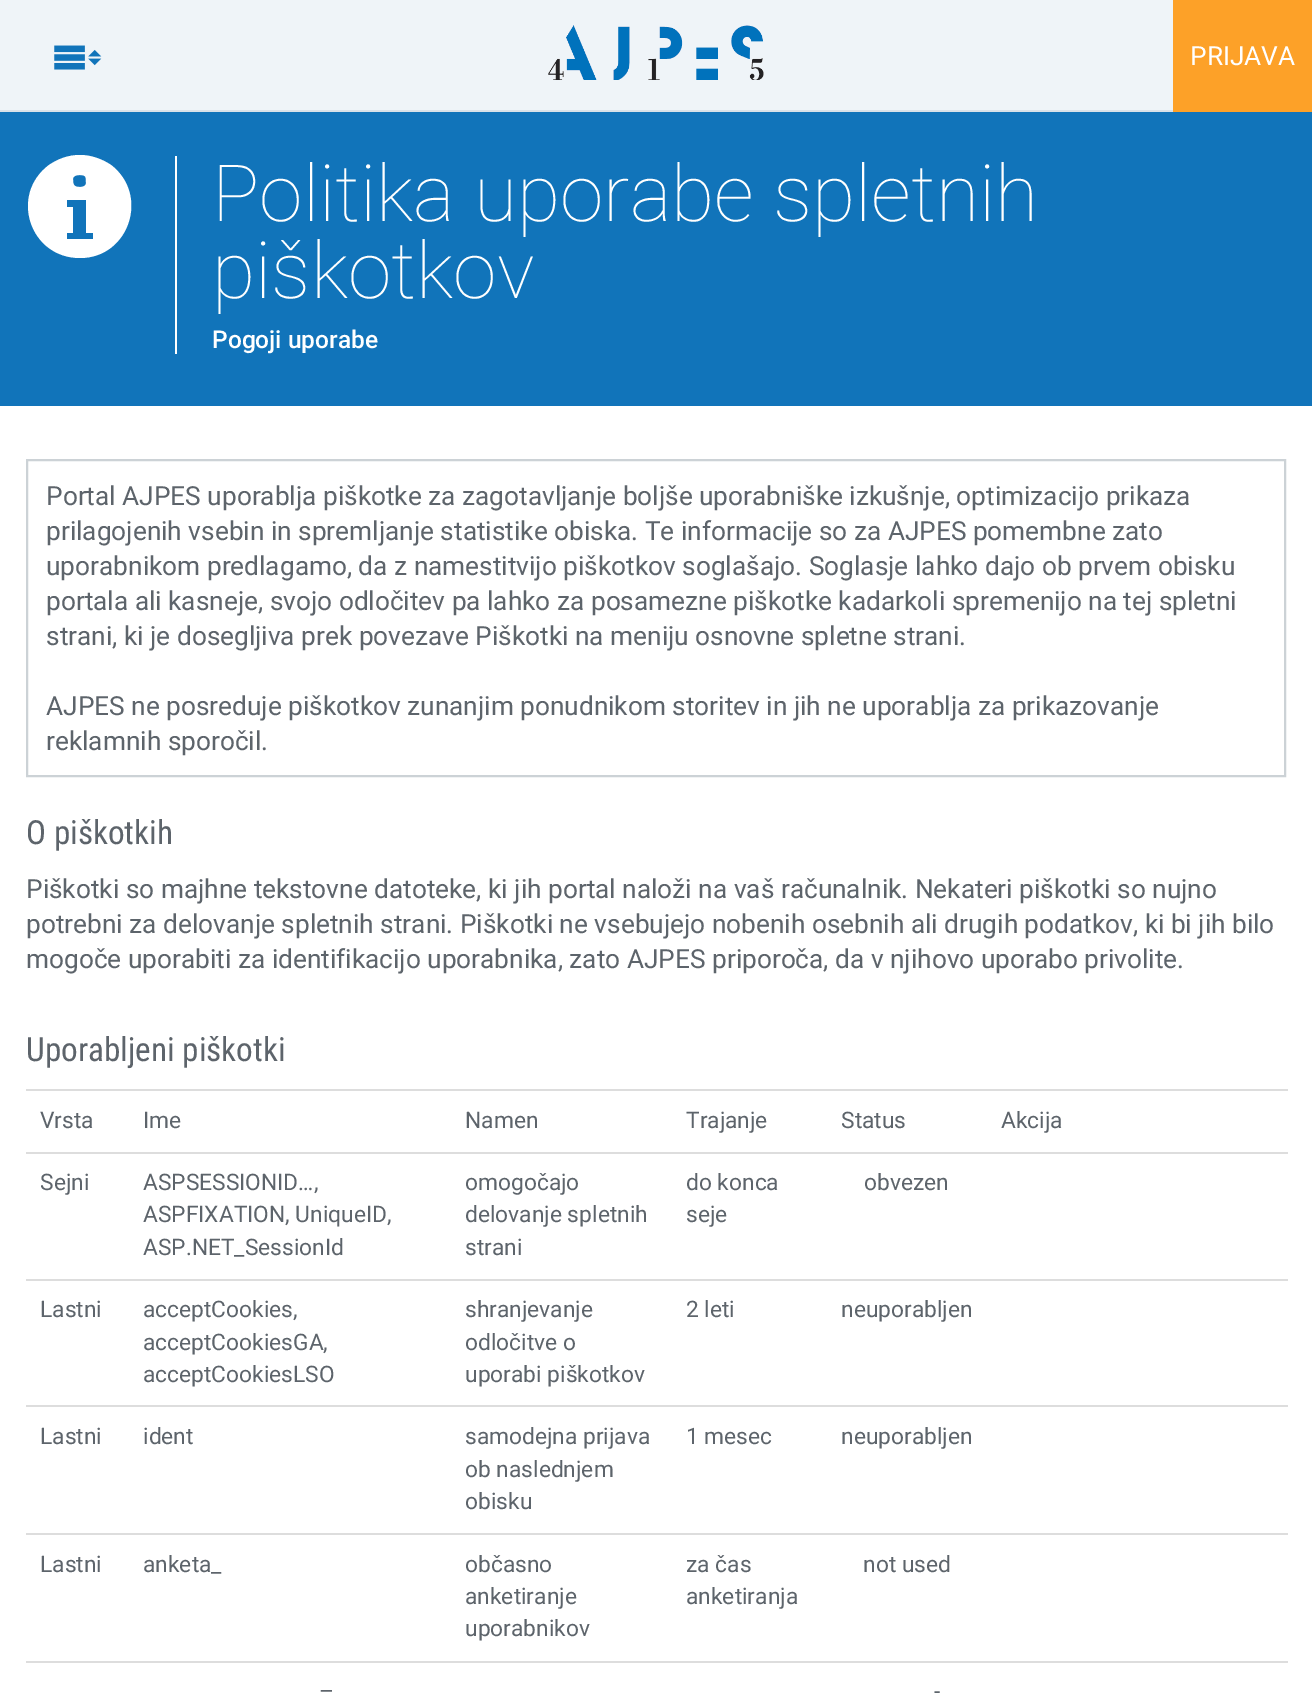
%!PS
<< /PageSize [1312 1693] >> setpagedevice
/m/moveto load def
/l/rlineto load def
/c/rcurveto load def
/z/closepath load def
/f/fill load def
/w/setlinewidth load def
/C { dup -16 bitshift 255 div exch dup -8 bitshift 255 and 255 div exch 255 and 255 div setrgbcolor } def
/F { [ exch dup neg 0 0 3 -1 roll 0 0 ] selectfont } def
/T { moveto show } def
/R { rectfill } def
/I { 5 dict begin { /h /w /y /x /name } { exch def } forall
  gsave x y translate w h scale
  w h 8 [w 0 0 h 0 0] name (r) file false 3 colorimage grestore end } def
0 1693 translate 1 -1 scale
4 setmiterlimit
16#FFFFFF C
0 0 1312 1693 R
16#EFF4F8 C
0 0 1173 110 R
16#D9E2E9 C
0 110 1173 2 R
(1.rgb) 54 45 48 25 I
(2.rgb) 548 25 216 55 I
16#FDA128 C
1173 0 139 112 R
/Roboto-Regular 26.25 F
16#FFFFFF C
(PRIJAVA) 1190 65 T
16#1174BA C
0 112 1312 294 R
16#FFFFFF C
80 155 m -12 0 -22 4 -31 10 c -40 30 -19 93 31 93 c 49 0 70 -63 31 -93 c -9 -6 -20 -10 -31 -10 c z 73 179 m 0 -3 3 -4 7 -4 c 6 0 6 2 6 8 c 0 3 -3 4 -6 4 c -6 0 -7 -2 -7 -8 c z 93 239 m -26 0 l 0 -6 l 6 0 l 0 -26 l -6 0 l 0 -7 l 19 0 l 0 33 l 7 0 l z f
175 156 2 198 R
/Roboto-Thin 78.75 F
(Politika uporabe spletnih) 212 221 T
(piškotkov) 212 298 T
/Roboto-Medium 24.5 F
(Pogoji uporabe) 212 348 T
16#CCD2D6 C
2 w
27 460 1258 316 rectstroke
/Roboto-Regular 26.25 F
16#5D646B C
(Portal AJPES uporablja piškotke za zagotavljanje boljše uporabniške izkušnje, optimizacijo prikaza) 46 505 T
(prilagojenih vsebin in spremljanje statistike obiska. Te informacije so za AJPES pomembne zato) 46 540 T
(uporabnikom predlagamo, da z namestitvijo piškotkov soglašajo. Soglasje lahko dajo ob prvem obisku) 46 575 T
(portala ali kasneje, svojo odločitev pa lahko za posamezne piškotke kadarkoli spremenijo na tej spletni) 46 610 T
(strani, ki je dosegljiva prek povezave Piškotki na meniju osnovne spletne strani.) 46 645 T
(AJPES ne posreduje piškotkov zunanjim ponudnikom storitev in jih ne uporablja za prikazovanje) 46 715 T
(reklamnih sporočil.) 46 750 T
/RobotoCondensed-Regular 33.25 F
(O piškotkih) 26 844 T
/Roboto-Regular 26.25 F
(Piškotki so majhne tekstovne datoteke, ki jih portal naloži na vaš računalnik. Nekateri piškotki so nujno) 26 898 T
(potrebni za delovanje spletnih strani. Piškotki ne vsebujejo nobenih osebnih ali drugih podatkov, ki bi jih bilo) 26 933 T
(mogoče uporabiti za identifikacijo uporabnika, zato AJPES priporoča, da v njihovo uporabo privolite.) 26 968 T
/RobotoCondensed-Regular 33.25 F
(Uporabljeni piškotki) 26 1061 T
/Roboto-Regular 22.75 F
(Vrsta) 40 1128 T
(Ime) 143 1128 T
(Namen) 465 1128 T
(Trajanje) 686 1128 T
(Status) 841 1128 T
16#DDDDDD C
26 1089 1262 2 R
16#5D646B C
(Akcija) 1001 1128 T
16#DDDDDD C
26 1152 1262 2 R
16#5D646B C
(Sejni) 40 1190 T
(ASPSESSIONID…,) 143 1190 T
(ASPFIXATION, UniqueID,) 143 1222 T
(ASP.NET_SessionId) 143 1255 T
(omogočajo) 465 1190 T
(delovanje spletnih) 465 1222 T
(strani) 465 1255 T
(do konca) 686 1190 T
(seje) 686 1222 T
(obvezen) 864 1190 T
16#DDDDDD C
26 1279 1262 2 R
16#5D646B C
(Lastni) 40 1317 T
(acceptCookies,) 143 1317 T
(acceptCookiesGA,) 143 1350 T
(acceptCookiesLSO) 143 1382 T
(shranjevanje) 465 1317 T
(odločitve o) 465 1350 T
(uporabi piškotkov) 465 1382 T
(2 leti) 686 1317 T
(neuporabljen) 841 1317 T
16#DDDDDD C
26 1405 1262 2 R
16#5D646B C
(Lastni) 40 1444 T
(ident) 143 1444 T
(samodejna prijava) 465 1444 T
(ob naslednjem) 465 1477 T
(obisku) 465 1509 T
(1 mesec) 686 1444 T
(neuporabljen) 841 1444 T
16#DDDDDD C
26 1533 1262 2 R
16#5D646B C
(Lastni) 40 1572 T
(anketa_) 143 1572 T
(občasno) 465 1572 T
(anketiranje) 465 1604 T
(uporabnikov) 465 1636 T
(za čas) 686 1572 T
(anketiranja) 686 1604 T
(not used) 863 1572 T
16#DDDDDD C
26 1661 1262 2 R
16#5D646B C
(–) 319 1699 T
(-) 934 1699 T
showpage
